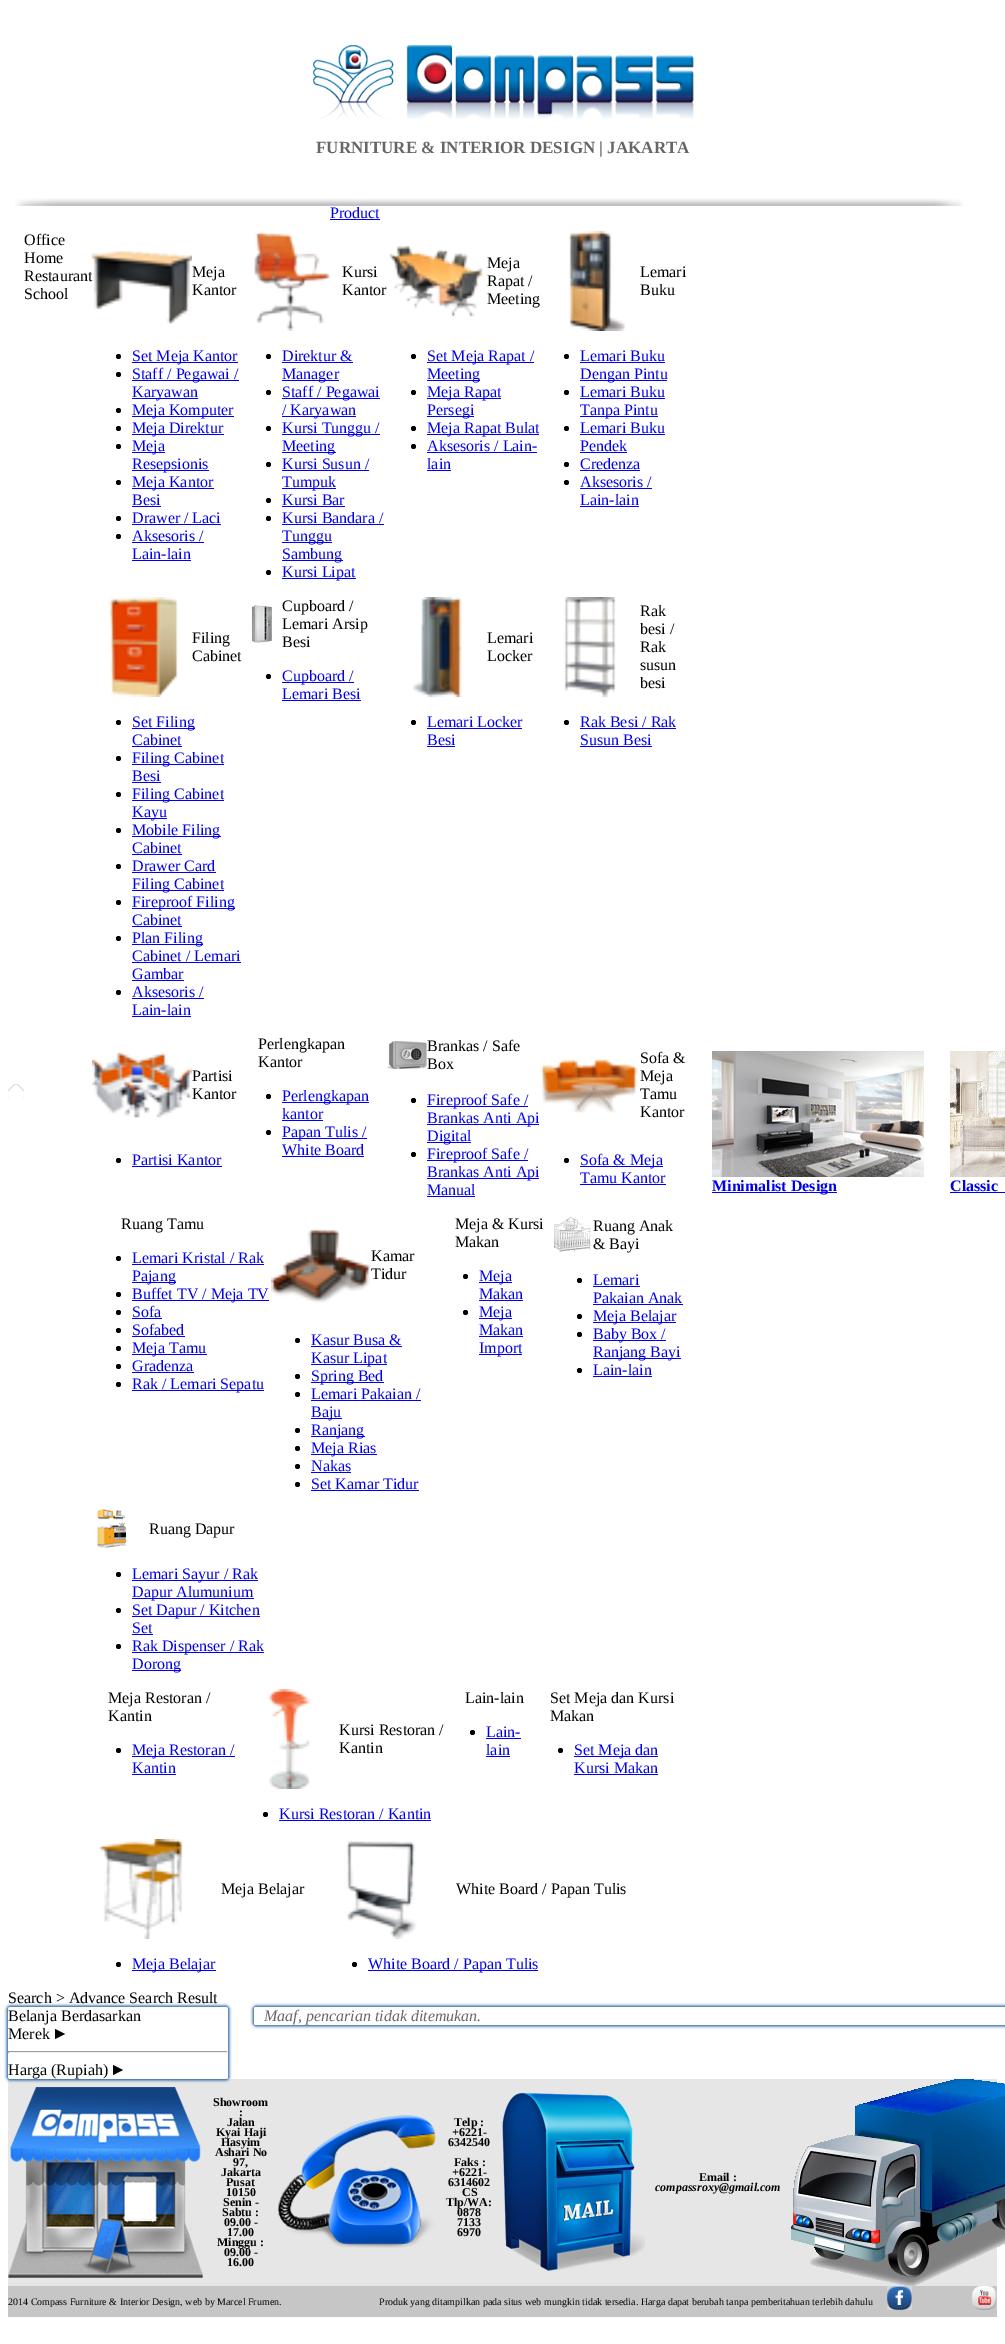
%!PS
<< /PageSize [1005 2344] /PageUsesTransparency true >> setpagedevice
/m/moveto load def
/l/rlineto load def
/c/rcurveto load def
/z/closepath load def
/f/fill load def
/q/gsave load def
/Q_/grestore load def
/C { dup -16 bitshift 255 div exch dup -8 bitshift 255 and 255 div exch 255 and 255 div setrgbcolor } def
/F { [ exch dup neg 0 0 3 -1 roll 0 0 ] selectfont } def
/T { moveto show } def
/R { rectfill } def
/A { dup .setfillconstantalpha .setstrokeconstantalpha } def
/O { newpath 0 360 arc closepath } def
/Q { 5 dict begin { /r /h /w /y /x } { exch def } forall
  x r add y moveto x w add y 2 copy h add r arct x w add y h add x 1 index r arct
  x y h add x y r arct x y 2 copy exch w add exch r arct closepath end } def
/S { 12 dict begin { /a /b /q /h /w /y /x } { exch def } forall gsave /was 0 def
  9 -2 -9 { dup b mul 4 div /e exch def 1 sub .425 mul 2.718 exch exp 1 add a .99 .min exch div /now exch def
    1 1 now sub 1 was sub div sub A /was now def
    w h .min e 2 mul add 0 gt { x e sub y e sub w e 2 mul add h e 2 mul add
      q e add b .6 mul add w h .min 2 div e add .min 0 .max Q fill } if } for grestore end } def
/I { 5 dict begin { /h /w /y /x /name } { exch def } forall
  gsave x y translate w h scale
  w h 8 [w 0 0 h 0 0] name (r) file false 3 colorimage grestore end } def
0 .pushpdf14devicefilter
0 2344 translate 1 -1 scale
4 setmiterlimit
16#FFFFFF C
0 0 1005 2344 R
(1.rgb) 313 45 381 74 I
/LiberationSerif-Bold 17 F
16#666666 C
(FURNITURE & INTERIOR DESIGN | JAKARTA) 316 153 T
(2.rgb) 15 198 948 8 I
(3.rgb) 8 1084 16 14 I
/LiberationSerif-Regular 16 F
16#0000EE C
(Product) 330 218 T
330 219 50 1 R
16#000000 C
(Office) 24 245 T
(Home) 24 263 T
(Restaurant) 24 281 T
(School) 24 299 T
(4.rgb) 92 250 100 74 I
(Meja) 192 277 T
(Kantor) 192 295 T
118.5 356.5 2.5 O f
16#0000EE C
132 362 106 1 R
(Set Meja Kantor) 132 361 T
16#000000 C
118.5 374.5 2.5 O f
16#0000EE C
132 380 107 1 R
(Staff / Pegawai /) 132 379 T
132 398 66 1 R
(Karyawan) 132 397 T
16#000000 C
118.5 410.5 2.5 O f
16#0000EE C
132 416 102 1 R
(Meja Komputer) 132 415 T
16#000000 C
118.5 428.5 2.5 O f
16#0000EE C
132 434 92 1 R
(Meja Direktur) 132 433 T
16#000000 C
118.5 446.5 2.5 O f
16#0000EE C
132 452 33 1 R
(Meja) 132 451 T
132 470 77 1 R
(Resepsionis) 132 469 T
16#000000 C
118.5 482.5 2.5 O f
16#0000EE C
132 488 82 1 R
(Meja Kantor) 132 487 T
(Besi) 132 505 T
132 506 29 1 R
16#000000 C
118.5 518.5 2.5 O f
16#0000EE C
(Drawer / Laci) 132 523 T
132 524 89 1 R
16#000000 C
118.5 536.5 2.5 O f
16#0000EE C
(Aksesoris /) 132 541 T
132 542 72 1 R
(Lain-lain) 132 559 T
132 560 59 1 R
(5.rgb) 254 231 76 100 I
16#000000 C
(Kursi) 342 277 T
(Kantor) 342 295 T
268.5 356.5 2.5 O f
16#0000EE C
(Direktur &) 282 361 T
282 362 71 1 R
282 380 57 1 R
(Manager) 282 379 T
16#000000 C
268.5 392.5 2.5 O f
16#0000EE C
282 398 98 1 R
(Staff / Pegawai) 282 397 T
282 416 74 1 R
(/ Karyawan) 282 415 T
16#000000 C
268.5 428.5 2.5 O f
16#0000EE C
282 434 98 1 R
(Kursi Tunggu /) 282 433 T
282 452 54 1 R
(Meeting) 282 451 T
16#000000 C
268.5 464.5 2.5 O f
16#0000EE C
(Kursi Susun /) 282 469 T
282 470 87 1 R
282 488 54 1 R
(Tumpuk) 282 487 T
16#000000 C
268.5 500.5 2.5 O f
16#0000EE C
(Kursi Bar) 282 505 T
282 506 63 1 R
16#000000 C
268.5 518.5 2.5 O f
16#0000EE C
(Kursi Bandara /) 282 523 T
282 524 102 1 R
282 542 50 1 R
(Tunggu) 282 541 T
282 560 61 1 R
(Sambung) 282 559 T
16#000000 C
268.5 572.5 2.5 O f
16#0000EE C
282 578 74 1 R
(Kursi Lipat) 282 577 T
(6.rgb) 389 245 95 72 I
16#000000 C
(Meja) 487 268 T
(Rapat /) 487 286 T
(Meeting) 487 304 T
413.5 356.5 2.5 O f
16#0000EE C
427 362 107 1 R
(Set Meja Rapat /) 427 361 T
427 380 53 1 R
(Meeting) 427 379 T
16#000000 C
413.5 392.5 2.5 O f
16#0000EE C
427 398 74 1 R
(Meja Rapat) 427 397 T
427 416 47 1 R
(Persegi) 427 415 T
16#000000 C
413.5 428.5 2.5 O f
16#0000EE C
427 434 112 1 R
(Meja Rapat Bulat) 427 433 T
16#000000 C
413.5 446.5 2.5 O f
16#0000EE C
(Aksesoris / Lain-) 427 451 T
427 452 110 1 R
(lain) 427 469 T
427 470 24 1 R
(7.rgb) 569 231 57 100 I
16#000000 C
(Lemari) 640 277 T
(Buku) 640 295 T
566.5 356.5 2.5 O f
16#0000EE C
(Lemari Buku) 580 361 T
580 362 85 1 R
580 380 87 1 R
(Dengan Pintu) 580 379 T
16#000000 C
566.5 392.5 2.5 O f
16#0000EE C
(Lemari Buku) 580 397 T
580 398 85 1 R
580 416 78 1 R
(Tanpa Pintu) 580 415 T
16#000000 C
566.5 428.5 2.5 O f
16#0000EE C
(Lemari Buku) 580 433 T
580 434 85 1 R
(Pendek) 580 451 T
580 452 47 1 R
16#000000 C
566.5 464.5 2.5 O f
16#0000EE C
(Credenza) 580 469 T
580 470 60 1 R
16#000000 C
566.5 482.5 2.5 O f
16#0000EE C
(Aksesoris /) 580 487 T
580 488 72 1 R
(Lain-lain) 580 505 T
580 506 59 1 R
(8.rgb) 109 597 69 100 I
16#000000 C
(Filing) 192 643 T
(Cabinet) 192 661 T
118.5 722.5 2.5 O f
16#0000EE C
132 728 63 1 R
(Set Filing) 132 727 T
(Cabinet) 132 745 T
132 746 50 1 R
16#000000 C
118.5 758.5 2.5 O f
16#0000EE C
132 764 92 1 R
(Filing Cabinet) 132 763 T
(Besi) 132 781 T
132 782 29 1 R
16#000000 C
118.5 794.5 2.5 O f
16#0000EE C
132 800 92 1 R
(Filing Cabinet) 132 799 T
132 818 35 1 R
(Kayu) 132 817 T
16#000000 C
118.5 830.5 2.5 O f
16#0000EE C
132 836 89 1 R
(Mobile Filing) 132 835 T
(Cabinet) 132 853 T
132 854 50 1 R
16#000000 C
118.5 866.5 2.5 O f
16#0000EE C
(Drawer Card) 132 871 T
132 872 84 1 R
132 890 92 1 R
(Filing Cabinet) 132 889 T
16#000000 C
118.5 902.5 2.5 O f
16#0000EE C
132 908 103 1 R
(Fireproof Filing) 132 907 T
(Cabinet) 132 925 T
132 926 50 1 R
16#000000 C
118.5 938.5 2.5 O f
16#0000EE C
132 944 71 1 R
(Plan Filing) 132 943 T
(Cabinet / Lemari) 132 961 T
132 962 109 1 R
(Gambar) 132 979 T
132 980 52 1 R
16#000000 C
118.5 992.5 2.5 O f
16#0000EE C
(Aksesoris /) 132 997 T
132 998 72 1 R
(Lain-lain) 132 1015 T
132 1016 59 1 R
(9.rgb) 251 605 21 38 I
16#000000 C
(Cupboard /) 282 611 T
(Lemari Arsip) 282 629 T
(Besi) 282 647 T
268.5 676.5 2.5 O f
16#0000EE C
282 682 72 1 R
(Cupboard /) 282 681 T
(Lemari Besi) 282 699 T
282 700 79 1 R
(10.rgb) 412 597 50 100 I
16#000000 C
(Lemari) 487 643 T
(Locker) 487 661 T
413.5 722.5 2.5 O f
16#0000EE C
(Lemari Locker) 427 727 T
427 728 95 1 R
(Besi) 427 745 T
427 746 28 1 R
(11.rgb) 564 597 52 100 I
16#000000 C
(Rak) 640 616 T
(besi /) 640 634 T
(Rak) 640 652 T
(susun) 640 670 T
(besi) 640 688 T
566.5 722.5 2.5 O f
16#0000EE C
(Rak Besi / Rak) 580 727 T
580 728 96 1 R
(Susun Besi) 580 745 T
580 746 72 1 R
(12.rgb) 92 1052 100 66 I
16#000000 C
(Partisi) 192 1081 T
(Kantor) 192 1099 T
118.5 1160.5 2.5 O f
16#0000EE C
(Partisi Kantor) 132 1165 T
132 1166 90 1 R
16#000000 C
(Perlengkapan) 258 1049 T
(Kantor) 258 1067 T
268.5 1096.5 2.5 O f
16#0000EE C
282 1102 87 1 R
(Perlengkapan) 282 1101 T
(kantor) 282 1119 T
282 1120 41 1 R
16#000000 C
268.5 1132.5 2.5 O f
16#0000EE C
282 1138 85 1 R
(Papan Tulis /) 282 1137 T
(White Board) 282 1155 T
282 1156 82 1 R
(13.rgb) 387 1041 40 28 I
16#000000 C
(Brankas / Safe) 427 1051 T
(Box) 427 1069 T
413.5 1100.5 2.5 O f
16#0000EE C
427 1106 101 1 R
(Fireproof Safe /) 427 1105 T
427 1124 112 1 R
(Brankas Anti Api) 427 1123 T
427 1142 44 1 R
(Digital) 427 1141 T
16#000000 C
413.5 1154.5 2.5 O f
16#0000EE C
427 1160 101 1 R
(Fireproof Safe /) 427 1159 T
427 1178 112 1 R
(Brankas Anti Api) 427 1177 T
(Manual) 427 1195 T
427 1196 48 1 R
(14.rgb) 540 1059 98 54 I
16#000000 C
(Sofa &) 640 1063 T
(Meja) 640 1081 T
(Tamu) 640 1099 T
(Kantor) 640 1117 T
566.5 1160.5 2.5 O f
16#0000EE C
580 1166 83 1 R
(Sofa & Meja) 580 1165 T
(Tamu Kantor) 580 1183 T
580 1184 86 1 R
16#000000 C
(Ruang Tamu) 121 1229 T
118.5 1258.5 2.5 O f
16#0000EE C
(Lemari Kristal / Rak) 132 1263 T
132 1264 132 1 R
132 1282 44 1 R
(Pajang) 132 1281 T
16#000000 C
118.5 1294.5 2.5 O f
16#0000EE C
132 1300 137 1 R
(Buffet TV / Meja TV) 132 1299 T
16#000000 C
118.5 1312.5 2.5 O f
16#0000EE C
(Sofa) 132 1317 T
132 1318 30 1 R
16#000000 C
118.5 1330.5 2.5 O f
16#0000EE C
(Sofabed) 132 1335 T
132 1336 53 1 R
16#000000 C
118.5 1348.5 2.5 O f
16#0000EE C
132 1354 75 1 R
(Meja Tamu) 132 1353 T
16#000000 C
118.5 1366.5 2.5 O f
16#0000EE C
(Gradenza) 132 1371 T
132 1372 62 1 R
16#000000 C
118.5 1384.5 2.5 O f
16#0000EE C
132 1390 132 1 R
(Rak / Lemari Sepatu) 132 1389 T
(15.rgb) 271 1229 100 74 I
16#000000 C
(Kamar) 371 1261 T
(Tidur) 371 1279 T
297.5 1340.5 2.5 O f
16#0000EE C
(Kasur Busa &) 311 1345 T
311 1346 91 1 R
311 1364 76 1 R
(Kasur Lipat) 311 1363 T
16#000000 C
297.5 1376.5 2.5 O f
16#0000EE C
311 1382 73 1 R
(Spring Bed) 311 1381 T
16#000000 C
297.5 1394.5 2.5 O f
16#0000EE C
(Lemari Pakaian /) 311 1399 T
311 1400 110 1 R
311 1418 31 1 R
(Baju) 311 1417 T
16#000000 C
297.5 1430.5 2.5 O f
16#0000EE C
311 1436 54 1 R
(Ranjang) 311 1435 T
16#000000 C
297.5 1448.5 2.5 O f
16#0000EE C
311 1454 66 1 R
(Meja Rias) 311 1453 T
16#000000 C
297.5 1466.5 2.5 O f
16#0000EE C
(Nakas) 311 1471 T
311 1472 40 1 R
16#000000 C
297.5 1484.5 2.5 O f
16#0000EE C
(Set Kamar Tidur) 311 1489 T
311 1490 108 1 R
16#000000 C
(Meja & Kursi) 455 1229 T
(Makan) 455 1247 T
465.5 1276.5 2.5 O f
16#0000EE C
479 1282 33 1 R
(Meja) 479 1281 T
(Makan) 479 1299 T
479 1300 44 1 R
16#000000 C
465.5 1312.5 2.5 O f
16#0000EE C
479 1318 33 1 R
(Meja) 479 1317 T
(Makan) 479 1335 T
479 1336 44 1 R
479 1354 43 1 R
(Import) 479 1353 T
(16.rgb) 554 1217 37 35 I
16#000000 C
(Ruang Anak) 593 1231 T
(& Bayi) 593 1249 T
579.5 1280.5 2.5 O f
16#0000EE C
(Lemari) 593 1285 T
593 1286 47 1 R
(Pakaian Anak) 593 1303 T
593 1304 90 1 R
16#000000 C
579.5 1316.5 2.5 O f
16#0000EE C
593 1322 83 1 R
(Meja Belajar) 593 1321 T
16#000000 C
579.5 1334.5 2.5 O f
16#0000EE C
593 1340 73 1 R
(Baby Box /) 593 1339 T
593 1358 88 1 R
(Ranjang Bayi) 593 1357 T
16#000000 C
579.5 1370.5 2.5 O f
16#0000EE C
(Lain-lain) 593 1375 T
593 1376 59 1 R
(17.rgb) 97 1509 30 39 I
16#000000 C
(Ruang Dapur) 149 1534 T
118.5 1574.5 2.5 O f
16#0000EE C
132 1580 126 1 R
(Lemari Sayur / Rak) 132 1579 T
132 1598 122 1 R
(Dapur Alumunium) 132 1597 T
16#000000 C
118.5 1610.5 2.5 O f
16#0000EE C
132 1616 128 1 R
(Set Dapur / Kitchen) 132 1615 T
(Set) 132 1633 T
132 1634 21 1 R
16#000000 C
118.5 1646.5 2.5 O f
16#0000EE C
132 1652 132 1 R
(Rak Dispenser / Rak) 132 1651 T
132 1670 49 1 R
(Dorong) 132 1669 T
16#000000 C
(Meja Restoran /) 108 1703 T
(Kantin) 108 1721 T
118.5 1750.5 2.5 O f
16#0000EE C
132 1756 103 1 R
(Meja Restoran /) 132 1755 T
(Kantin) 132 1773 T
132 1774 44 1 R
(18.rgb) 268 1689 44 100 I
16#000000 C
(Kursi Restoran /) 339 1735 T
(Kantin) 339 1753 T
265.5 1814.5 2.5 O f
16#0000EE C
(Kursi Restoran / Kantin) 279 1819 T
279 1820 152 1 R
16#000000 C
(Lain-lain) 465 1703 T
472.5 1732.5 2.5 O f
16#0000EE C
(Lain-) 486 1737 T
486 1738 35 1 R
(lain) 486 1755 T
486 1756 24 1 R
16#000000 C
(Set Meja dan Kursi) 550 1703 T
(Makan) 550 1721 T
560.5 1750.5 2.5 O f
16#0000EE C
574 1756 84 1 R
(Set Meja dan) 574 1755 T
(Kursi Makan) 574 1773 T
574 1774 84 1 R
(19.rgb) 99 1839 84 100 I
16#000000 C
(Meja Belajar) 221 1894 T
118.5 1964.5 2.5 O f
16#0000EE C
132 1970 84 1 R
(Meja Belajar) 132 1969 T
(20.rgb) 346 1841 71 98 I
16#000000 C
(White Board / Papan Tulis) 456 1894 T
354.5 1964.5 2.5 O f
16#0000EE C
368 1970 170 1 R
(White Board / Papan Tulis) 368 1969 T
(21.rgb) 712 1051 212 126 I
712 1192 125 1 R
/LiberationSerif-Bold 16 F
(Minimalist Design) 712 1191 T
(22.rgb) 950 1051 55 126 I
(Classic) 950 1191 T
950 1192 55 1 R
/LiberationSerif-Regular 16 F
16#000000 C
(Search > Advance Search Result) 8 2003 T
16#E6E6E6 C
8 2079 989 207 R
q
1 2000 m 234 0 l 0 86 l -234 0 l z 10 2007 m 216 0 l 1 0 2 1 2 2 c 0 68 l 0 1 -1 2 -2 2 c -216 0 l -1 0 -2 -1 -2 -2 c 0 -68 l 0 -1 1 -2 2 -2 c z eoclip newpath
16#004B92 C
7 2006 222 74 3 1.5 1 S
Q_
0.9 A
16#FFFFFF C
8 2007 220 72 2 Q f
1 A
16#000000 C
(Belanja Berdasarkan) 8 2021 T
(Merek) 8 2039 T
55 2039 m 0 -10 l 10 5 l z f
16#9F9F9F C
8 2051 220 1 R
16#EEEEEE C
227 2051 1 2 R
8 2052 220 1 R
16#9F9F9F C
8 2051 1 2 R
16#000000 C
(Harga \(Rupiah\)) 8 2075 T
113 2075 m 0 -10 l 10 5 l z f
16#004B92 C
253 2006 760 20 3 1.5 1 S
16#FFFFFF C
254 2007 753 18 2 Q f
/LiberationSerif-Italic 16 F
16#666666 C
(Maaf, pencarian tidak ditemukan.) 264 2021 T
(23.rgb) 8 2087 195 191 I
/LiberationSerif-Bold 12 F
16#000000 C
(Showroom) 213 2106 T
(:) 239 2116 T
(Jalan) 227 2126 T
(Kyai Haji) 216 2136 T
(Hasyim) 221 2146 T
(Ashari No) 215 2156 T
(97,) 233 2166 T
(Jakarta) 221 2176 T
(Pusat) 226 2186 T
(10150) 226 2196 T
(Senin -) 223 2206 T
(Sabtu :) 222 2216 T
(09.00 -) 224 2226 T
(17.00) 227 2236 T
(Minggu :) 217 2246 T
(09.00 -) 224 2256 T
(16.00) 227 2266 T
(24.rgb) 278 2115 158 133 I
(Telp :) 454 2126 T
(+6221-) 452 2136 T
(6342540) 448 2146 T
(Faks :) 454 2166 T
(+6221-) 452 2176 T
(6314602) 448 2186 T
(CS) 462 2196 T
(Tlp/WA:) 446 2206 T
(0878) 457 2216 T
(7133) 457 2226 T
(6970) 457 2236 T
(25.rgb) 502 2093 143 178 I
(Email :) 699 2181 T
/LiberationSerif-BoldItalic 12 F
(compassroxy@gmail.com) 655 2191 T
(26.rgb) 791 2079 214 207 I
16#C6C6C6 C
8 2286 989 31 R
/LiberationSerif-Regular 10 F
16#000000 C
(2014 Compass Furniture & Interior Design, web by Marcel Frumen.) 8 2305 T
(Produk yang ditampilkan pada situs web mungkin tidak tersedia. Harga dapat berubah tanpa pemberitahuan terlebih dahulu) 379 2305 T
(27.rgb) 887 2286 25 24 I
(28.rgb) 972 2286 25 24 I
.poppdf14devicefilter showpage
